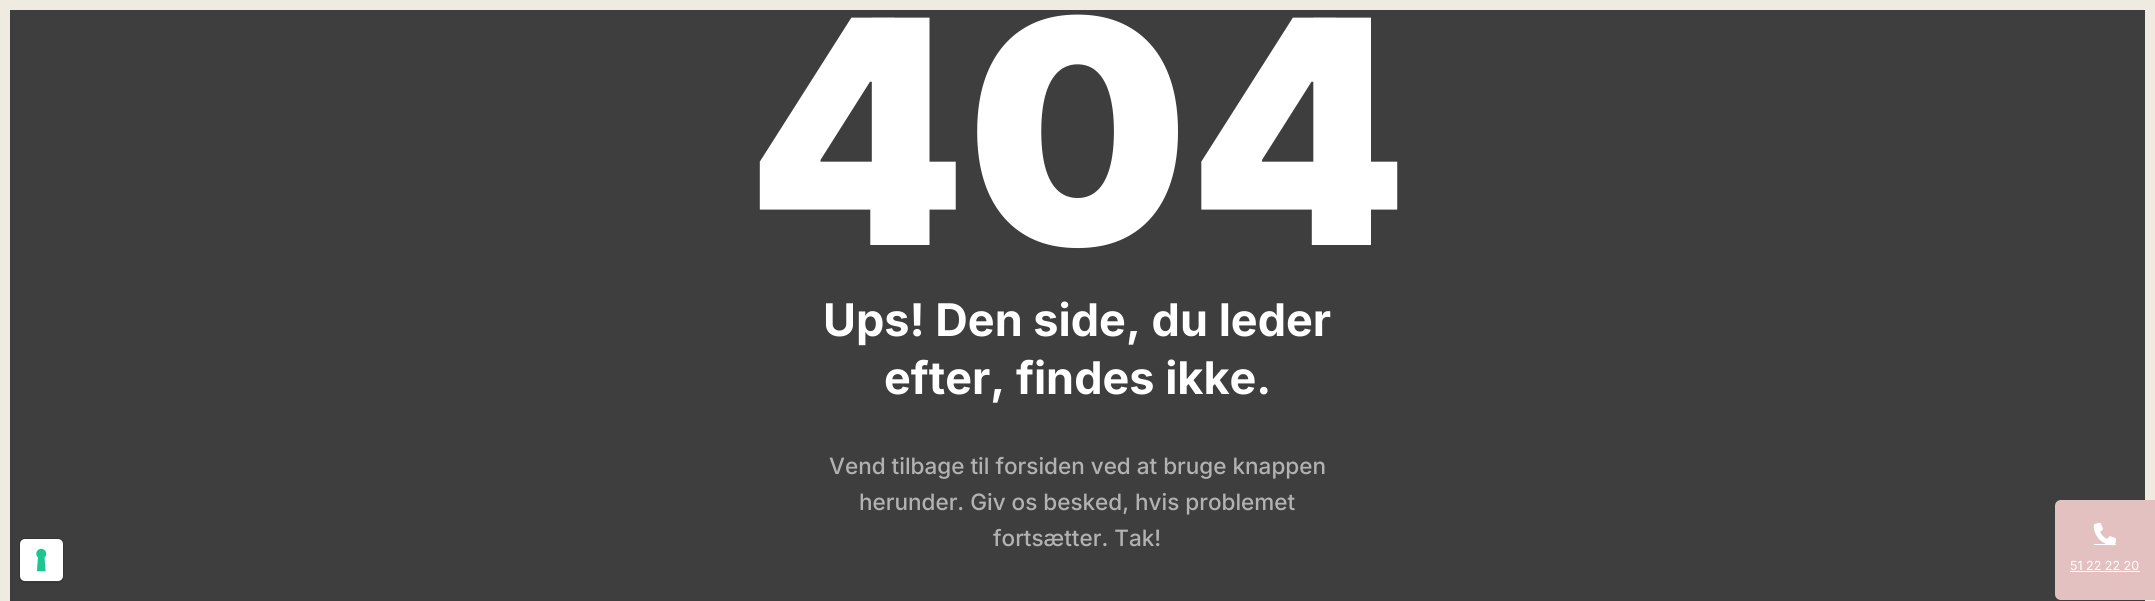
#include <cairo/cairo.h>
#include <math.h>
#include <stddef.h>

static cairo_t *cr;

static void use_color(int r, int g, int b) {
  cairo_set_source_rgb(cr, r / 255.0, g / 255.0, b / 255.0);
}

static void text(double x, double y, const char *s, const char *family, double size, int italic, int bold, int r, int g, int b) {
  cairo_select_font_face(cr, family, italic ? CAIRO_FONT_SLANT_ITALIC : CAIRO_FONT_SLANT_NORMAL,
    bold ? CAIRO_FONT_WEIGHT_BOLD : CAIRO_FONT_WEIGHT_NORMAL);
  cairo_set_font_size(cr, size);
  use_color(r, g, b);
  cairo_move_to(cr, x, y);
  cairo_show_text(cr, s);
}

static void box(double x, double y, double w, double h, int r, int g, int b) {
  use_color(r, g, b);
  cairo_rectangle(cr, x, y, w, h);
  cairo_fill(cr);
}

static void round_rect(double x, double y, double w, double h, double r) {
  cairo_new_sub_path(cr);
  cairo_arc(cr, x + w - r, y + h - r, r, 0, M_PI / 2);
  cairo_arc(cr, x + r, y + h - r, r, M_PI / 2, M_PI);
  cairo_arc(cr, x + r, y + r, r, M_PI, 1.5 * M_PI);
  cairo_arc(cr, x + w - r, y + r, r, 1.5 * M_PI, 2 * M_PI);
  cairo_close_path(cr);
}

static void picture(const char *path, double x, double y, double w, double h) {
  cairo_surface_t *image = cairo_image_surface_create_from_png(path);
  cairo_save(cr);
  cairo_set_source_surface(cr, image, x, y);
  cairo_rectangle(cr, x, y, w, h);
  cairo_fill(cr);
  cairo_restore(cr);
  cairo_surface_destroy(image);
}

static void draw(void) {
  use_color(240, 235, 225);
  cairo_paint(cr);
  box(10, 10, 2135, 591, 62, 62, 62);
  round_rect(19.5, 538.5, 44, 44, 5.5);
  use_color(53, 53, 53);
  cairo_set_line_width(cr, 1);
  cairo_stroke(cr);
  use_color(255, 255, 255);
  round_rect(20, 539, 43, 42, 5);
  cairo_fill(cr);
  picture("img_01.png", 36, 548, 11, 24);
  use_color(227, 193, 193);
  cairo_new_path(cr);
  cairo_move_to(cr, 2061, 500);
  cairo_line_to(cr, 2155, 500);
  cairo_line_to(cr, 2155, 600);
  cairo_line_to(cr, 2061, 600);
  cairo_curve_to(cr, 2057.5, 600, 2055, 597.5, 2055, 594);
  cairo_line_to(cr, 2055, 506);
  cairo_curve_to(cr, 2055, 502.5, 2057.5, 500, 2061, 500);
  cairo_close_path(cr);
  cairo_fill(cr);
  box(2094, 544, 22, 1, 255, 255, 255);
  picture("img_02.png", 2093, 522, 24, 24);
  box(2070, 571, 70, 1, 255, 255, 255);
  text(747, 245, "404", "Inter Black", 312.5, 0, 0, 255, 255, 255);
  text(823, 336, "Ups! Den side, du leder", "Inter", 45, 0, 1, 255, 255, 255);
  text(884, 394, "efter, findes ikke.", "Inter", 45, 0, 1, 255, 255, 255);
  text(829, 474, "Vend tilbage til forsiden ved at bruge knappen", "Inter Medium", 22.5, 0, 0, 178, 178, 178);
  text(859, 510, "herunder. Giv os besked, hvis problemet", "Inter Medium", 22.5, 0, 0, 178, 178, 178);
  text(993, 546, "fortsætter. Tak!", "Inter Medium", 22.5, 0, 0, 178, 178, 178);
  text(2070, 570, "51 22 22 20", "Inter", 12.5, 0, 0, 255, 255, 255);
}

int main(void) {
  cairo_surface_t *surface = cairo_image_surface_create(CAIRO_FORMAT_RGB24, 2155, 601);
  cr = cairo_create(surface);
  cairo_font_options_t *options = cairo_font_options_create();
  cairo_font_options_set_hint_metrics(options, CAIRO_HINT_METRICS_OFF);
  cairo_font_options_set_hint_style(options, CAIRO_HINT_STYLE_NONE);
  cairo_set_font_options(cr, options);
  cairo_set_miter_limit(cr, 4);
  draw();
  cairo_surface_write_to_png(surface, "out.png");
  cairo_font_options_destroy(options);
  cairo_destroy(cr);
  cairo_surface_destroy(surface);
  return 0;
}
